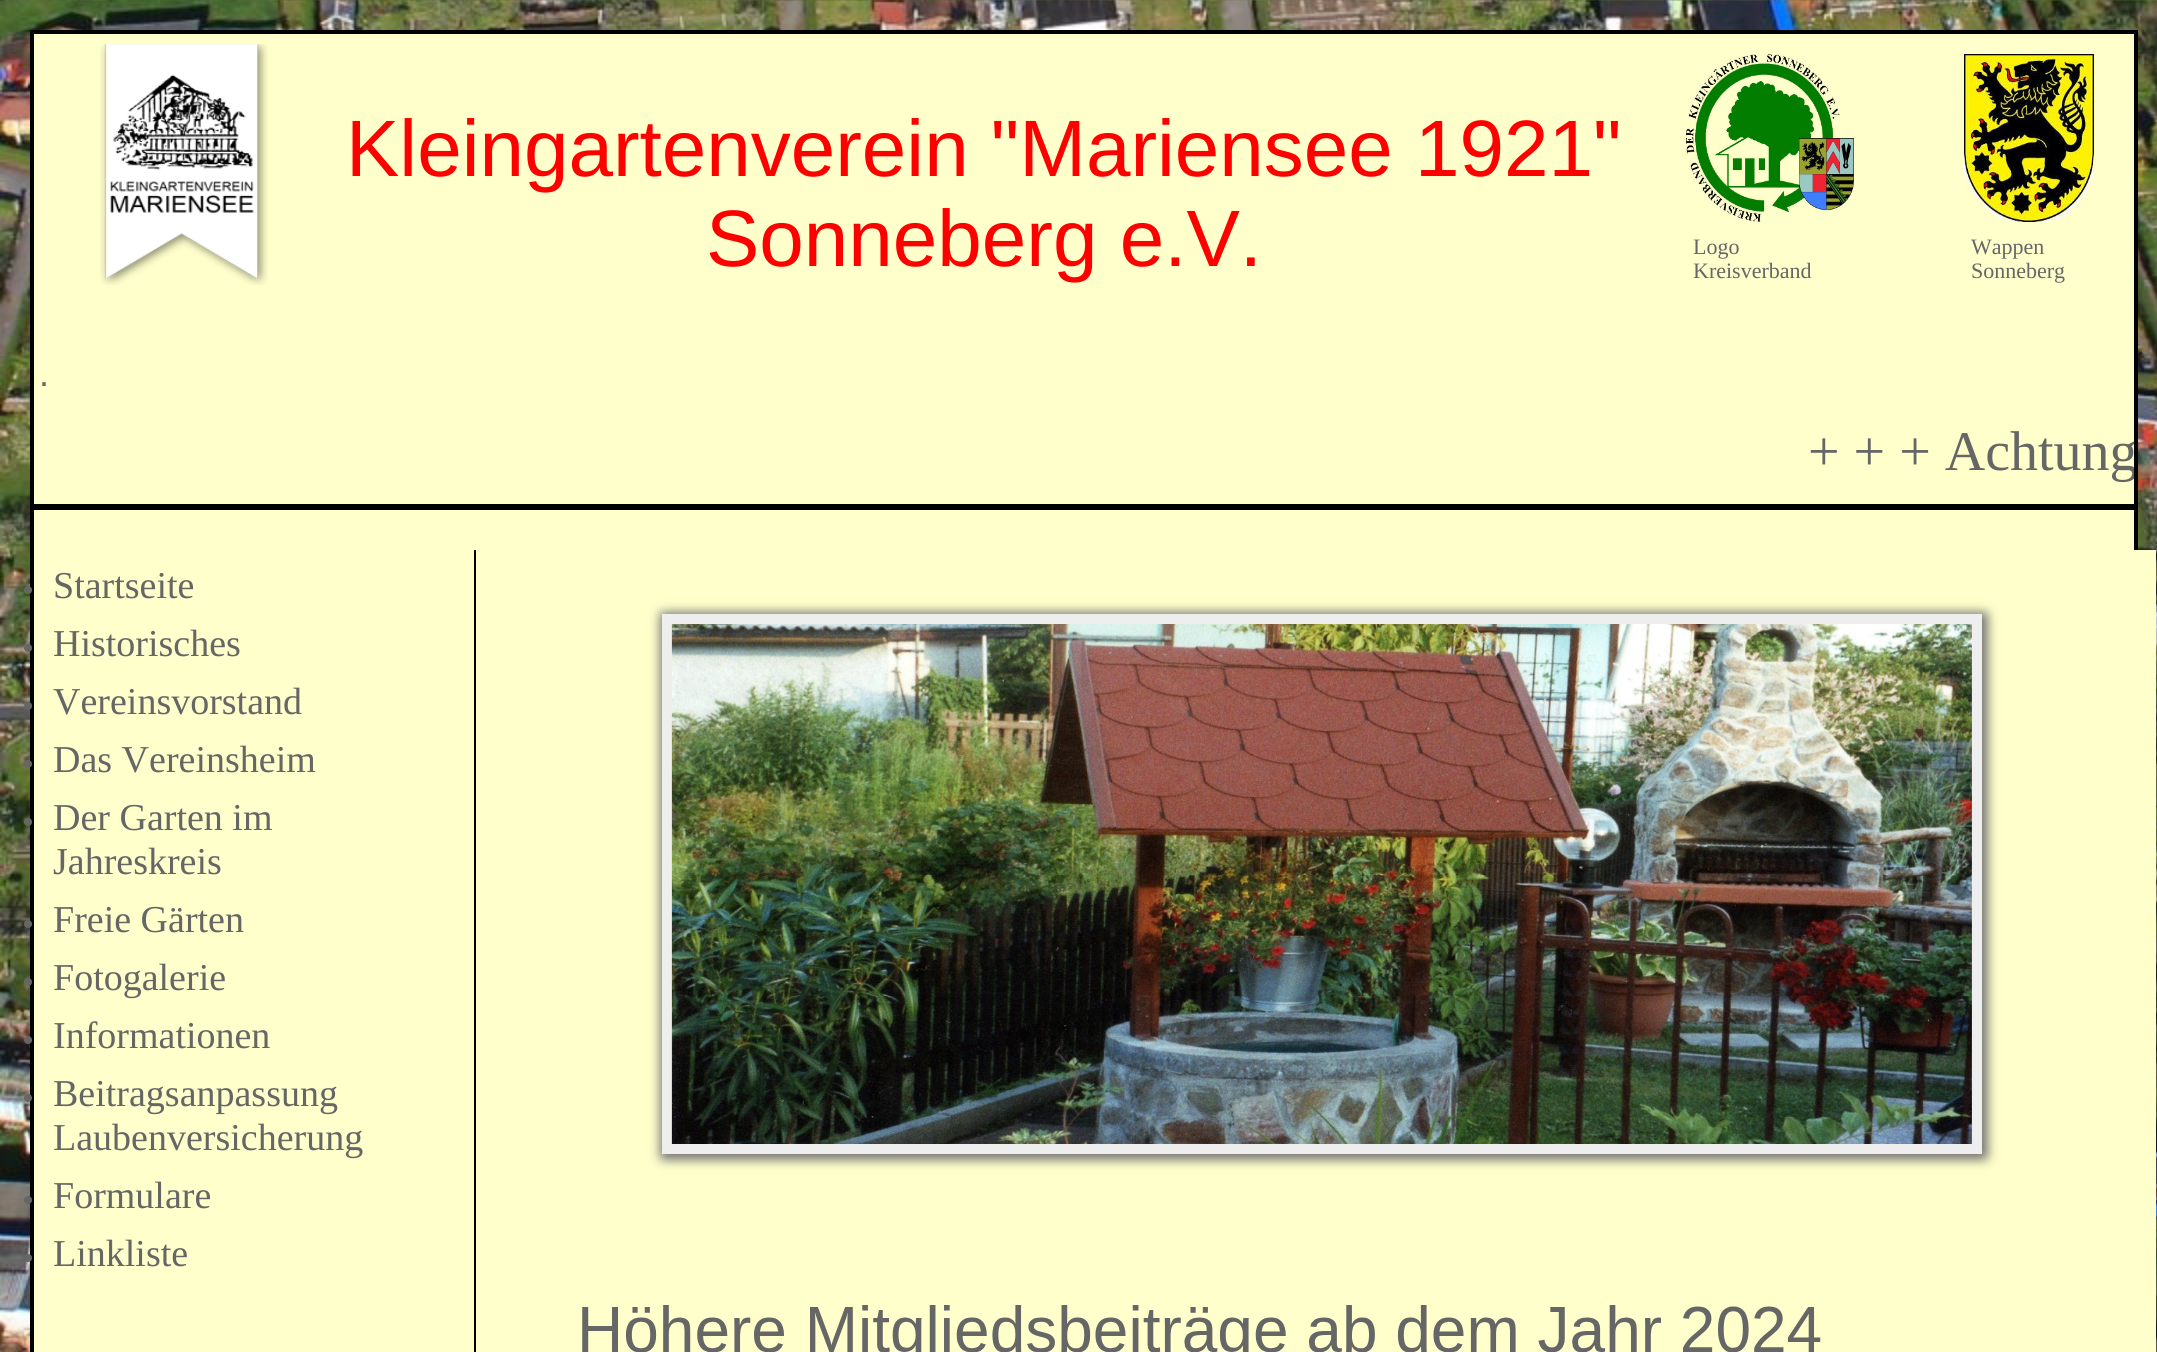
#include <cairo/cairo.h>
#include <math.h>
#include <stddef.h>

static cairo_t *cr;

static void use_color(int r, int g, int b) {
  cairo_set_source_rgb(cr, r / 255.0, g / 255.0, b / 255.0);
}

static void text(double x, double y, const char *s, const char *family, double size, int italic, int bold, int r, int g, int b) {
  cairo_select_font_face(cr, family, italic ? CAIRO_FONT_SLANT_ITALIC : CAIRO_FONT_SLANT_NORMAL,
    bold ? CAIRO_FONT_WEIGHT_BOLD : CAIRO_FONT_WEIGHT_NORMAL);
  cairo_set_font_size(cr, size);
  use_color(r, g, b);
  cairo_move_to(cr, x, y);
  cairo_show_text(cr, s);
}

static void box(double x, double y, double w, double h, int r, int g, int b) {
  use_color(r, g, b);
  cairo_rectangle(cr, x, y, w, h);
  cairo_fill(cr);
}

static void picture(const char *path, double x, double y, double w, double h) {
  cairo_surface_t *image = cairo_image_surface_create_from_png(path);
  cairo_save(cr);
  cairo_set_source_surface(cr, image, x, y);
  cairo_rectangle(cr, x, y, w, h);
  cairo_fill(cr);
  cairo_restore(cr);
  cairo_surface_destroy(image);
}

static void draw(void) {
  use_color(255, 255, 255);
  cairo_paint(cr);
  picture("img_01.png", 0, 0, 2157, 1352);
  use_color(255, 255, 204);
  cairo_rectangle(cr, 32, 32, 2104, 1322);
  cairo_fill_preserve(cr);
  use_color(0, 0, 0);
  cairo_set_line_width(cr, 4);
  cairo_stroke(cr);
  picture("img_02.png", 100, 44, 168, 241);
  picture("img_03.png", 1686, 54, 168, 168);
  picture("img_04.png", 1964, 54, 130, 168);
  box(34, 504, 2100, 6, 0, 0, 0);
  box(474, 550, 2, 802, 0, 0, 0);
  use_color(102, 102, 102);
  cairo_arc(cr, 28, 590, 4, 0, 2 * M_PI);
  cairo_fill(cr);
  cairo_arc(cr, 28, 648, 4, 0, 2 * M_PI);
  cairo_fill(cr);
  cairo_arc(cr, 28, 706, 4, 0, 2 * M_PI);
  cairo_fill(cr);
  cairo_arc(cr, 28, 764, 4, 0, 2 * M_PI);
  cairo_fill(cr);
  cairo_arc(cr, 28, 822, 4, 0, 2 * M_PI);
  cairo_fill(cr);
  cairo_arc(cr, 28, 924, 4, 0, 2 * M_PI);
  cairo_fill(cr);
  cairo_arc(cr, 28, 982, 4, 0, 2 * M_PI);
  cairo_fill(cr);
  cairo_arc(cr, 28, 1040, 4, 0, 2 * M_PI);
  cairo_fill(cr);
  cairo_arc(cr, 28, 1098, 4, 0, 2 * M_PI);
  cairo_fill(cr);
  cairo_arc(cr, 28, 1200, 4, 0, 2 * M_PI);
  cairo_fill(cr);
  cairo_arc(cr, 28, 1258, 4, 0, 2 * M_PI);
  cairo_fill(cr);
  picture("img_05.png", 582, 550, 1574, 802);
  text(346, 176, "Kleingartenverein \"Mariensee 1921\"", "Liberation Sans", 80, 0, 0, 255, 0, 0);
  text(706, 266, "Sonneberg e.V.", "Liberation Sans", 80, 0, 0, 255, 0, 0);
  text(1693, 254, "Logo", "Liberation Serif", 22, 0, 0, 102, 102, 102);
  text(1693, 278, "Kreisverband", "Liberation Serif", 22, 0, 0, 102, 102, 102);
  text(1971, 254, "Wappen", "Liberation Serif", 22, 0, 0, 102, 102, 102);
  text(1971, 278, "Sonneberg", "Liberation Serif", 22, 0, 0, 102, 102, 102);
  text(39, 386, ".", "Liberation Sans", 36, 0, 0, 102, 102, 102);
  cairo_save(cr);
  cairo_rectangle(cr, 34, 420, 2100, 64);
  cairo_clip(cr);
  text(1808, 470, "+ + + Achtung", "Liberation Serif", 56, 0, 0, 102, 102, 102);
  cairo_restore(cr);
  text(53, 598, "Startseite", "Liberation Serif", 38, 0, 0, 102, 102, 102);
  text(53, 656, "Historisches", "Liberation Serif", 38, 0, 0, 102, 102, 102);
  text(53, 714, "Vereinsvorstand", "Liberation Serif", 38, 0, 0, 102, 102, 102);
  text(53, 772, "Das Vereinsheim", "Liberation Serif", 38, 0, 0, 102, 102, 102);
  text(53, 830, "Der Garten im", "Liberation Serif", 38, 0, 0, 102, 102, 102);
  text(53, 874, "Jahreskreis", "Liberation Serif", 38, 0, 0, 102, 102, 102);
  text(53, 932, "Freie Gärten", "Liberation Serif", 38, 0, 0, 102, 102, 102);
  text(53, 990, "Fotogalerie", "Liberation Serif", 38, 0, 0, 102, 102, 102);
  text(53, 1048, "Informationen", "Liberation Serif", 38, 0, 0, 102, 102, 102);
  text(53, 1106, "Beitragsanpassung", "Liberation Serif", 38, 0, 0, 102, 102, 102);
  text(53, 1150, "Laubenversicherung", "Liberation Serif", 38, 0, 0, 102, 102, 102);
  text(53, 1208, "Formulare", "Liberation Serif", 38, 0, 0, 102, 102, 102);
  text(53, 1266, "Linkliste", "Liberation Serif", 38, 0, 0, 102, 102, 102);
}

int main(void) {
  cairo_surface_t *surface = cairo_image_surface_create(CAIRO_FORMAT_RGB24, 2157, 1352);
  cr = cairo_create(surface);
  cairo_font_options_t *options = cairo_font_options_create();
  cairo_font_options_set_hint_metrics(options, CAIRO_HINT_METRICS_OFF);
  cairo_font_options_set_hint_style(options, CAIRO_HINT_STYLE_NONE);
  cairo_set_font_options(cr, options);
  cairo_set_miter_limit(cr, 4);
  draw();
  cairo_surface_write_to_png(surface, "out.png");
  cairo_font_options_destroy(options);
  cairo_destroy(cr);
  cairo_surface_destroy(surface);
  return 0;
}
